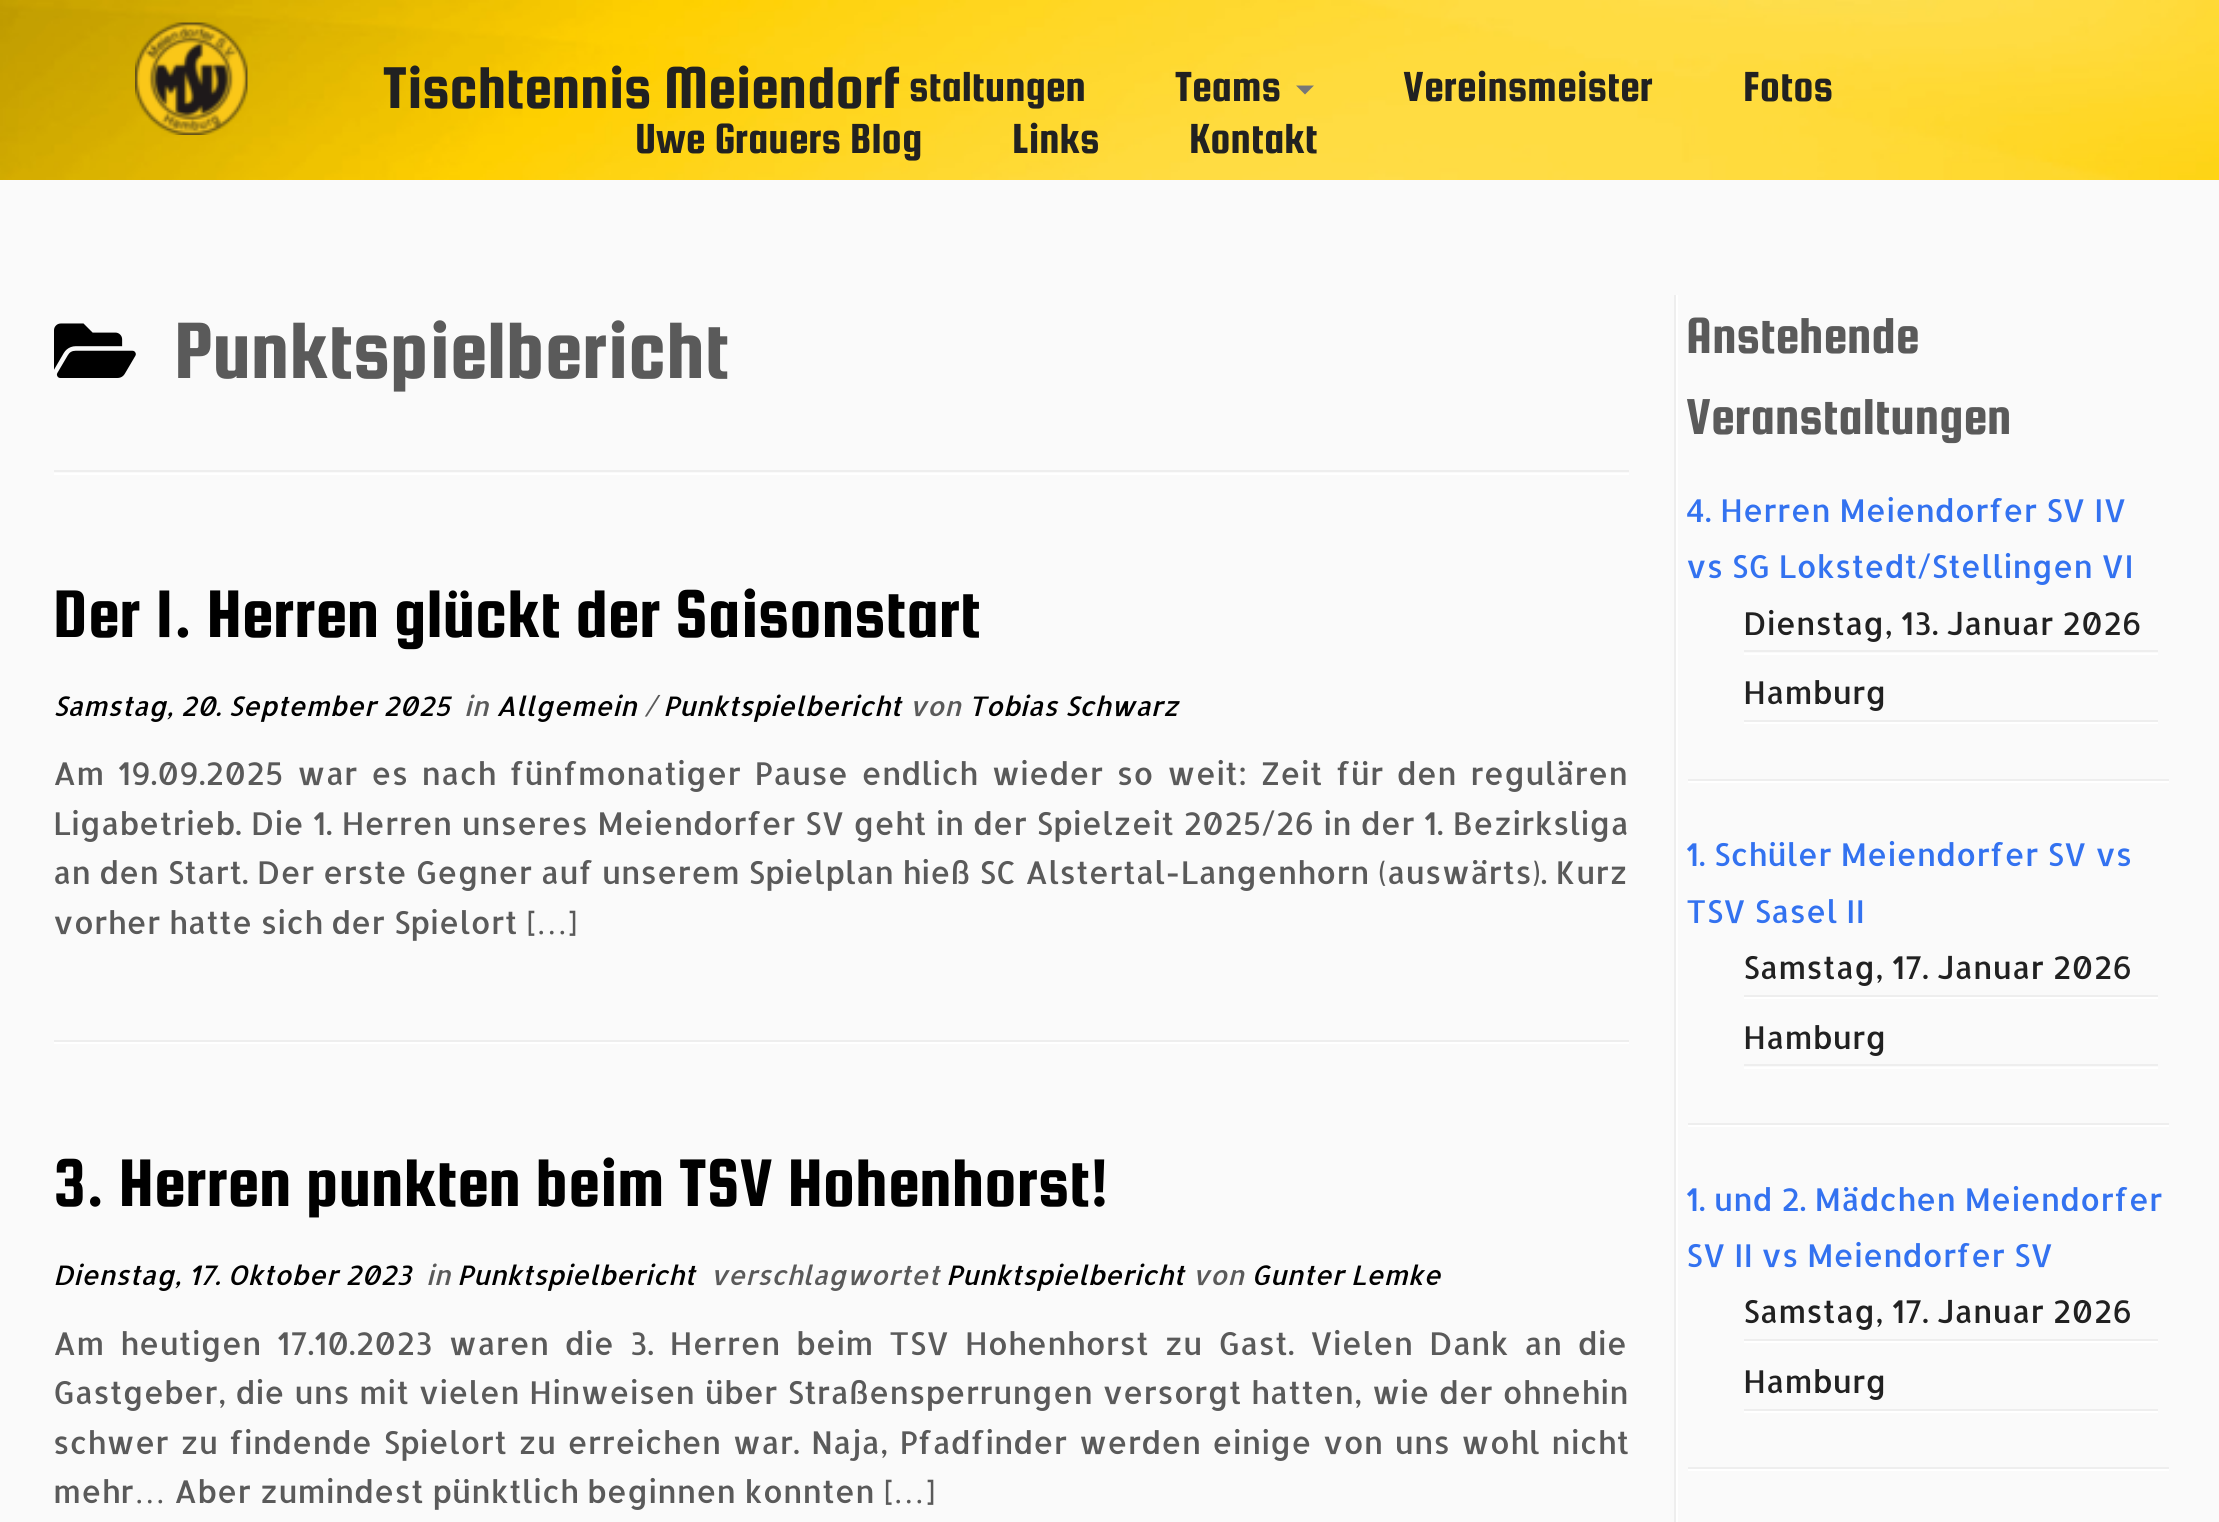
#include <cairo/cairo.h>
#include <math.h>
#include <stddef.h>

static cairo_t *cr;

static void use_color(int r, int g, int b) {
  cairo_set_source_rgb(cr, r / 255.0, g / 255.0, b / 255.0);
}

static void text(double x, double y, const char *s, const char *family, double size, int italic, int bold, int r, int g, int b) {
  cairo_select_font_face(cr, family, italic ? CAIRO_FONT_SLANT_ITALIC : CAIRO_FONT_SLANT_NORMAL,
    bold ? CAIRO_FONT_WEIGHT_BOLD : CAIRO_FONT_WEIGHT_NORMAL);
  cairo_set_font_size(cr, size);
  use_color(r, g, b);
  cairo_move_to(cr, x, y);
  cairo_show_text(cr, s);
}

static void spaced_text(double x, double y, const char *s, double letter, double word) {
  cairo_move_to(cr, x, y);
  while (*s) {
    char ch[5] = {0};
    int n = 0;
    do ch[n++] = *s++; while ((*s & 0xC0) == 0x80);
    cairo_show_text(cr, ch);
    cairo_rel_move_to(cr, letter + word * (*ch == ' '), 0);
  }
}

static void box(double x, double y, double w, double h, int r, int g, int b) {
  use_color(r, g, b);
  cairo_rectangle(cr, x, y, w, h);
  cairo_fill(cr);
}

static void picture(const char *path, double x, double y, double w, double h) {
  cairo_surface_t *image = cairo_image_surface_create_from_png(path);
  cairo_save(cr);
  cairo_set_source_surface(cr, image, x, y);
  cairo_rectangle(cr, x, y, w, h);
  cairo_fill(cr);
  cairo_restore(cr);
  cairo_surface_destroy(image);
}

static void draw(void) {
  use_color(250, 250, 250);
  cairo_paint(cr);
  picture("img_01.png", 0, 0, 2219, 180);
  picture("img_02.png", 135, 22, 113, 113);
  use_color(119, 119, 119);
  cairo_new_path(cr);
  cairo_move_to(cr, 1296, 85.5);
  cairo_line_to(cr, 1314, 85.5);
  cairo_line_to(cr, 1305, 94.5);
  cairo_close_path(cr);
  cairo_fill(cr);
  picture("img_03.png", 54, 323, 82, 55);
  box(54, 470, 1575, 2, 238, 238, 238);
  box(54, 473, 1575, 2, 255, 255, 255);
  box(54, 1040, 1575, 2, 238, 238, 238);
  box(54, 1042, 1575, 2, 255, 255, 255);
  box(1674, 295, 2, 1227, 238, 238, 238);
  box(1676, 295, 2, 1227, 255, 255, 255);
  box(1688, 779, 481, 2, 238, 238, 238);
  box(1744, 650, 414, 2, 238, 238, 238);
  box(1744, 653, 414, 2, 255, 255, 255);
  box(1744, 720, 414, 2, 238, 238, 238);
  box(1744, 722, 414, 2, 255, 255, 255);
  box(1688, 781, 481, 2, 255, 255, 255);
  box(1688, 1123, 481, 2, 238, 238, 238);
  box(1744, 995, 414, 2, 238, 238, 238);
  box(1744, 997, 414, 2, 255, 255, 255);
  box(1744, 1064, 414, 2, 238, 238, 238);
  box(1744, 1067, 414, 2, 255, 255, 255);
  box(1688, 1125, 481, 2, 255, 255, 255);
  box(1688, 1467, 481, 2, 238, 238, 238);
  box(1744, 1339, 414, 2, 238, 238, 238);
  box(1744, 1341, 414, 2, 255, 255, 255);
  box(1744, 1409, 414, 2, 238, 238, 238);
  box(1744, 1411, 414, 2, 255, 255, 255);
  box(1688, 1469, 481, 2, 255, 255, 255);
  text(383, 108, "Tischtennis Meiendorf", "Squada One", 63, 0, 0, 33, 33, 33);
  text(909, 101, "staltungen", "Squada One", 45, 0, 0, 33, 33, 33);
  text(1175, 101, "Teams", "Squada One", 45, 0, 0, 33, 33, 33);
  text(1403, 101, "Vereinsmeister", "Squada One", 45, 0, 0, 33, 33, 33);
  text(1743, 101, "Fotos", "Squada One", 45, 0, 0, 33, 33, 33);
  text(635, 153, "Uwe Grauers Blog", "Squada One", 45, 0, 0, 33, 33, 33);
  text(1012, 153, "Links", "Squada One", 45, 0, 0, 33, 33, 33);
  text(1189, 153, "Kontakt", "Squada One", 45, 0, 0, 33, 33, 33);
  text(174, 378, "Punktspielbericht", "Squada One", 85.5, 0, 0, 90, 90, 90);
  text(53, 637, "Der 1. Herren glückt der Saisonstart", "Squada One", 72, 0, 0, 0, 0, 0);
  text(53, 716, "Samstag, 20. September 2025", "Allerta", 27, 1, 0, 0, 0, 0);
  text(464, 716, "in", "Allerta", 27, 1, 0, 90, 90, 90);
  text(496, 716, "Allgemein", "Allerta", 27, 1, 0, 0, 0, 0);
  text(644, 716, "/", "Allerta", 27, 1, 0, 90, 90, 90);
  text(663, 716, "Punktspielbericht", "Allerta", 27, 1, 0, 0, 0, 0);
  text(909, 716, "von", "Allerta", 27, 1, 0, 90, 90, 90);
  text(968, 716, "Tobias Schwarz", "Allerta", 27, 1, 0, 0, 0, 0);
  cairo_select_font_face(cr, "Allerta", CAIRO_FONT_SLANT_NORMAL, CAIRO_FONT_WEIGHT_NORMAL);
  cairo_set_font_size(cr, 31.5);
  use_color(90, 90, 90);
  spaced_text(53, 785, "Am 19.09.2025 war es nach fünfmonatiger Pause endlich wieder so weit: Zeit für den regulären", 0, 5);
  spaced_text(53, 835, "Ligabetrieb. Die 1. Herren unseres Meiendorfer SV geht in der Spielzeit 2025/26 in der 1. Bezirksliga", 0, 0.75);
  text(53, 884, "an den Start. Der erste Gegner auf unserem Spielplan hieß SC Alstertal-Langenhorn (auswärts). Kurz", "Allerta", 31.5, 0, 0, 90, 90, 90);
  text(53, 934, "vorher hatte sich der Spielort [", "Allerta", 31.5, 0, 0, 90, 90, 90);
  text(536, 934, "…", "Liberation Serif", 31.5, 0, 0, 90, 90, 90);
  text(567, 934, "]", "Allerta", 31.5, 0, 0, 90, 90, 90);
  text(53, 1206, "3. Herren punkten beim TSV Hohenhorst!", "Squada One", 72, 0, 0, 0, 0, 0);
  text(53, 1285, "Dienstag, 17. Oktober 2023", "Allerta", 27, 1, 0, 0, 0, 0);
  text(426, 1285, "in", "Allerta", 27, 1, 0, 90, 90, 90);
  text(457, 1285, "Punktspielbericht", "Allerta", 27, 1, 0, 0, 0, 0);
  text(710, 1285, "verschlagwortet", "Allerta", 27, 1, 0, 90, 90, 90);
  text(946, 1285, "Punktspielbericht", "Allerta", 27, 1, 0, 0, 0, 0);
  text(1192, 1285, "von", "Allerta", 27, 1, 0, 90, 90, 90);
  text(1251, 1285, "Gunter Lemke", "Allerta", 27, 1, 0, 0, 0, 0);
  cairo_select_font_face(cr, "Allerta", CAIRO_FONT_SLANT_NORMAL, CAIRO_FONT_WEIGHT_NORMAL);
  cairo_set_font_size(cr, 31.5);
  use_color(90, 90, 90);
  spaced_text(53, 1355, "Am heutigen 17.10.2023 waren die 3. Herren beim TSV Hohenhorst zu Gast. Vielen Dank an die", 0, 7.25);
  spaced_text(53, 1404, "Gastgeber, die uns mit vielen Hinweisen über Straßensperrungen versorgt hatten, wie der ohnehin", 0, 1);
  spaced_text(53, 1454, "schwer zu findende Spielort zu erreichen war. Naja, Pfadfinder werden einige von uns wohl nicht", 0, 2.75);
  text(53, 1503, "mehr", "Allerta", 31.5, 0, 0, 90, 90, 90);
  text(134, 1503, "…", "Liberation Serif", 31.5, 0, 0, 90, 90, 90);
  text(174, 1503, "Aber zumindest pünktlich beginnen konnten [", "Allerta", 31.5, 0, 0, 90, 90, 90);
  text(893, 1503, "…", "Liberation Serif", 31.5, 0, 0, 90, 90, 90);
  text(925, 1503, "]", "Allerta", 31.5, 0, 0, 90, 90, 90);
  text(1686, 353, "Anstehende", "Squada One", 54, 0, 0, 90, 90, 90);
  text(1686, 434, "Veranstaltungen", "Squada One", 54, 0, 0, 90, 90, 90);
  text(1686, 522, "4. Herren Meiendorfer SV IV", "Allerta", 31.5, 0, 0, 51, 114, 240);
  text(1686, 578, "vs SG Lokstedt/Stellingen VI", "Allerta", 31.5, 0, 0, 51, 114, 240);
  text(1743, 635, "Dienstag, 13. Januar 2026", "Allerta", 31.5, 0, 0, 33, 33, 33);
  text(1743, 704, "Hamburg", "Allerta", 31.5, 0, 0, 33, 33, 33);
  text(1686, 866, "1. Schüler Meiendorfer SV vs", "Allerta", 31.5, 0, 0, 51, 114, 240);
  text(1686, 923, "TSV Sasel II", "Allerta", 31.5, 0, 0, 51, 114, 240);
  text(1743, 979, "Samstag, 17. Januar 2026", "Allerta", 31.5, 0, 0, 33, 33, 33);
  text(1743, 1049, "Hamburg", "Allerta", 31.5, 0, 0, 33, 33, 33);
  text(1686, 1211, "1. und 2. Mädchen Meiendorfer", "Allerta", 31.5, 0, 0, 51, 114, 240);
  text(1686, 1267, "SV II vs Meiendorfer SV", "Allerta", 31.5, 0, 0, 51, 114, 240);
  text(1743, 1323, "Samstag, 17. Januar 2026", "Allerta", 31.5, 0, 0, 33, 33, 33);
  text(1743, 1393, "Hamburg", "Allerta", 31.5, 0, 0, 33, 33, 33);
}

int main(void) {
  cairo_surface_t *surface = cairo_image_surface_create(CAIRO_FORMAT_RGB24, 2219, 1522);
  cr = cairo_create(surface);
  cairo_font_options_t *options = cairo_font_options_create();
  cairo_font_options_set_hint_metrics(options, CAIRO_HINT_METRICS_OFF);
  cairo_font_options_set_hint_style(options, CAIRO_HINT_STYLE_NONE);
  cairo_set_font_options(cr, options);
  cairo_set_miter_limit(cr, 4);
  draw();
  cairo_surface_write_to_png(surface, "out.png");
  cairo_font_options_destroy(options);
  cairo_destroy(cr);
  cairo_surface_destroy(surface);
  return 0;
}
